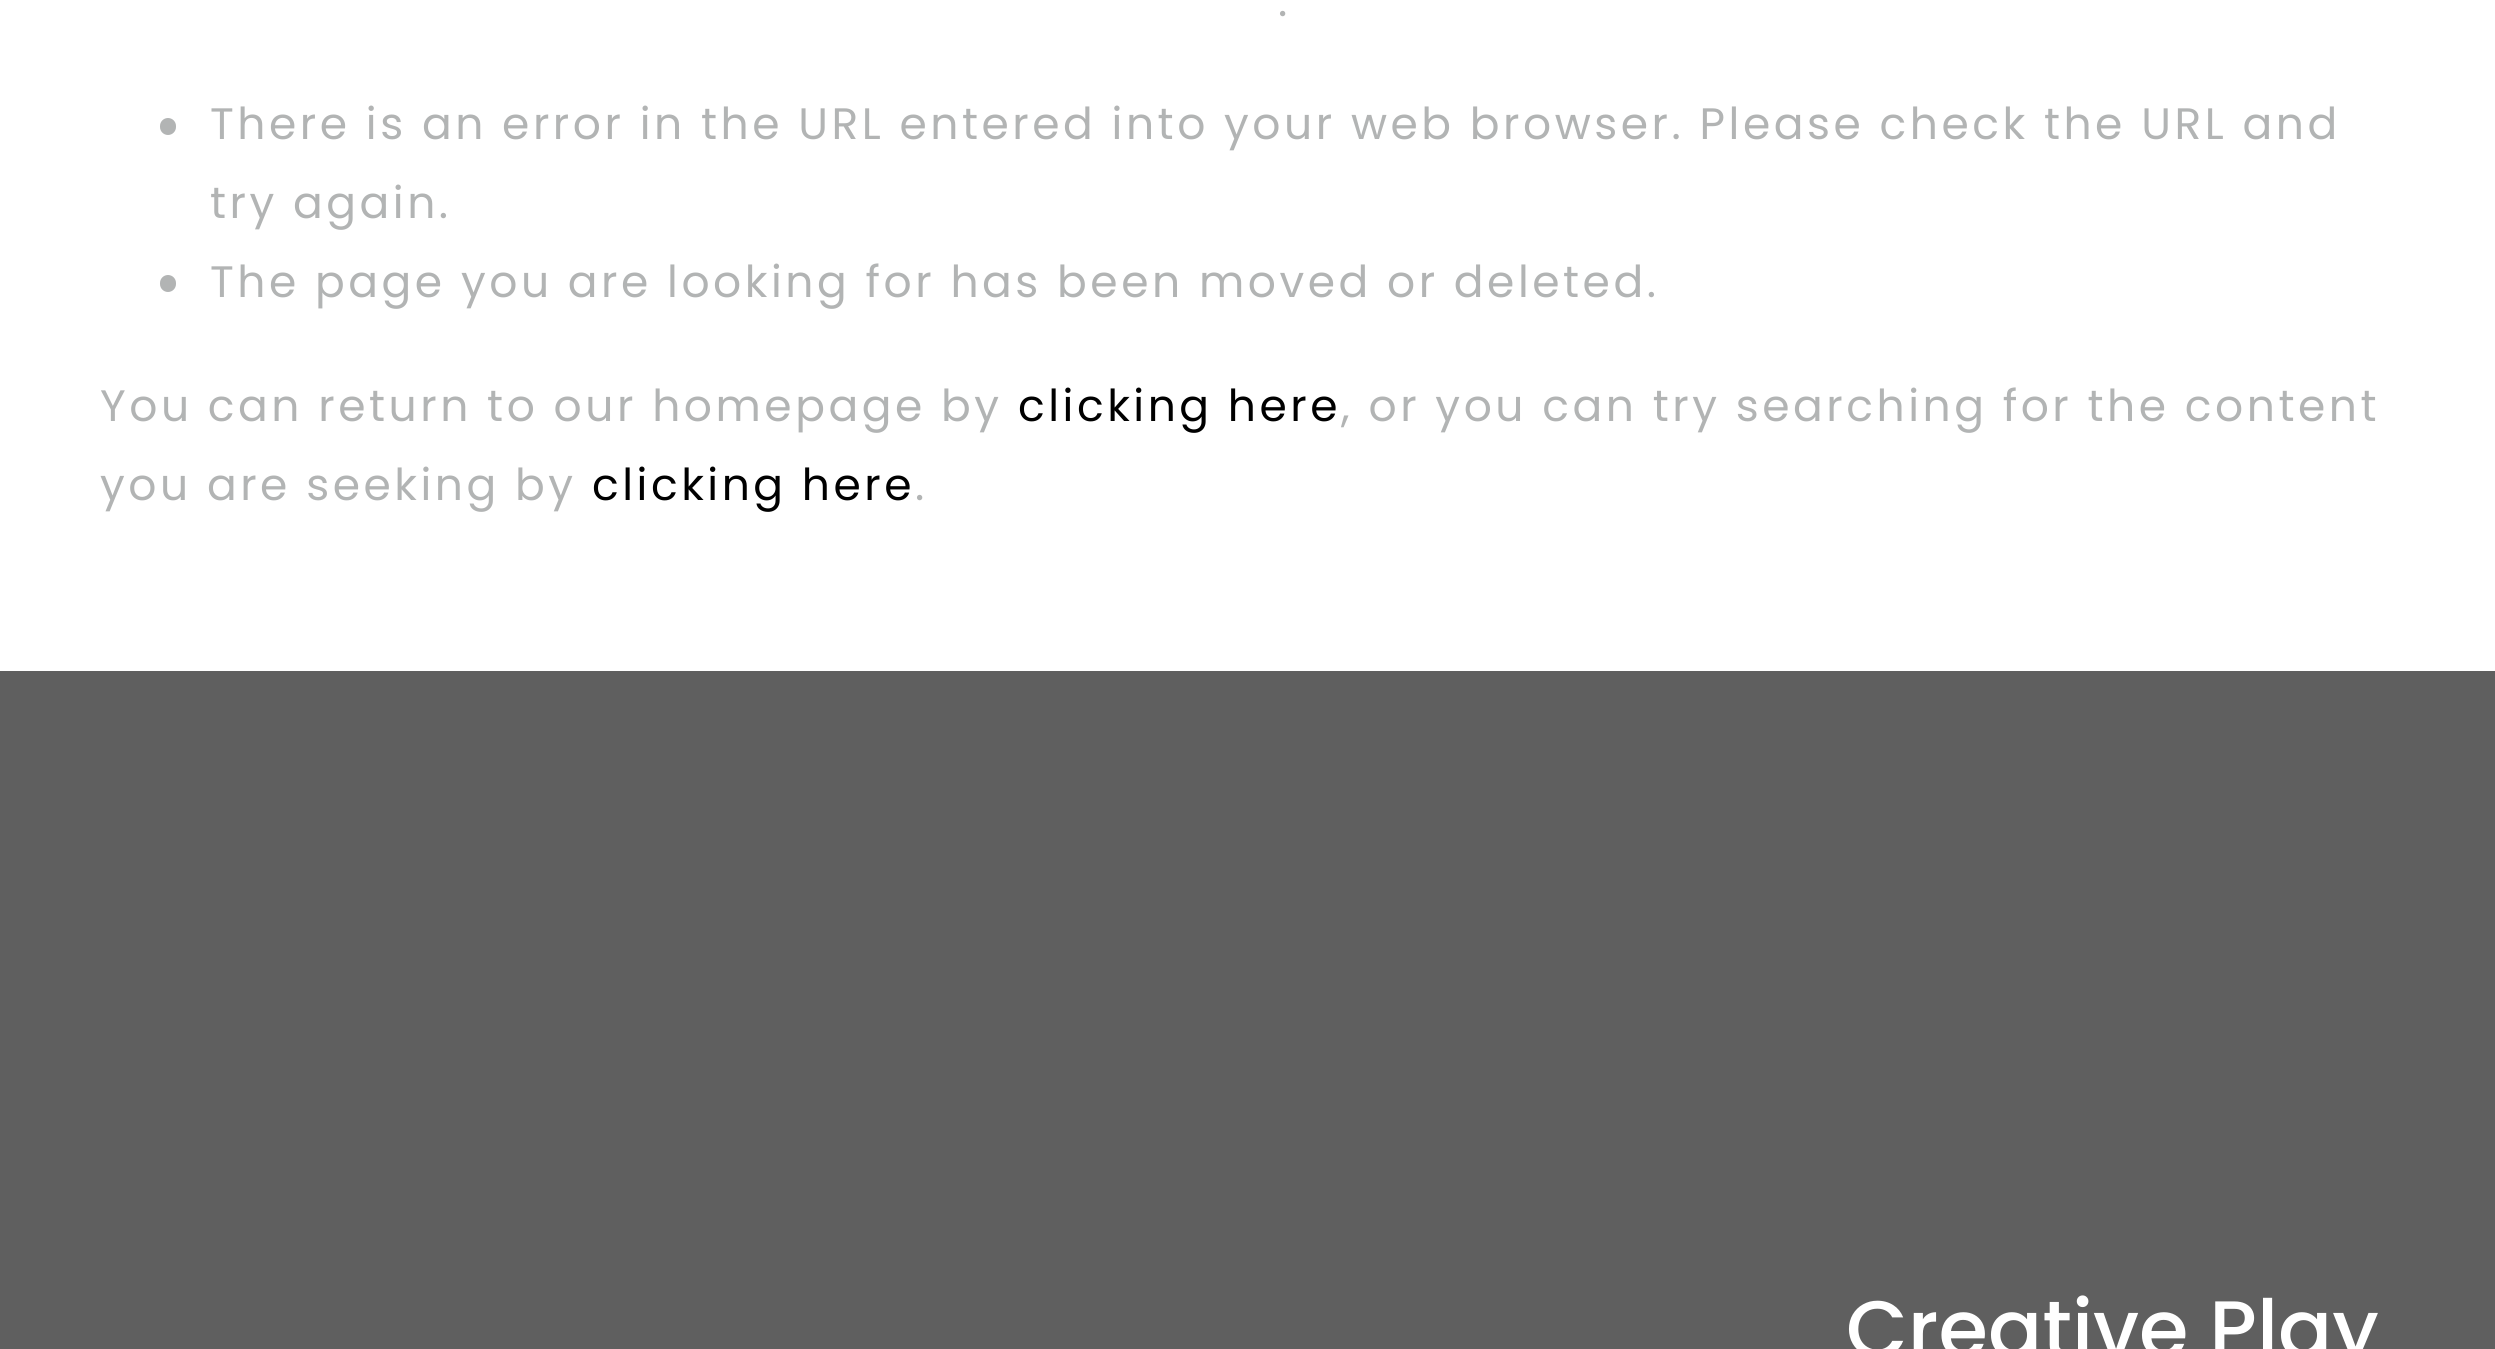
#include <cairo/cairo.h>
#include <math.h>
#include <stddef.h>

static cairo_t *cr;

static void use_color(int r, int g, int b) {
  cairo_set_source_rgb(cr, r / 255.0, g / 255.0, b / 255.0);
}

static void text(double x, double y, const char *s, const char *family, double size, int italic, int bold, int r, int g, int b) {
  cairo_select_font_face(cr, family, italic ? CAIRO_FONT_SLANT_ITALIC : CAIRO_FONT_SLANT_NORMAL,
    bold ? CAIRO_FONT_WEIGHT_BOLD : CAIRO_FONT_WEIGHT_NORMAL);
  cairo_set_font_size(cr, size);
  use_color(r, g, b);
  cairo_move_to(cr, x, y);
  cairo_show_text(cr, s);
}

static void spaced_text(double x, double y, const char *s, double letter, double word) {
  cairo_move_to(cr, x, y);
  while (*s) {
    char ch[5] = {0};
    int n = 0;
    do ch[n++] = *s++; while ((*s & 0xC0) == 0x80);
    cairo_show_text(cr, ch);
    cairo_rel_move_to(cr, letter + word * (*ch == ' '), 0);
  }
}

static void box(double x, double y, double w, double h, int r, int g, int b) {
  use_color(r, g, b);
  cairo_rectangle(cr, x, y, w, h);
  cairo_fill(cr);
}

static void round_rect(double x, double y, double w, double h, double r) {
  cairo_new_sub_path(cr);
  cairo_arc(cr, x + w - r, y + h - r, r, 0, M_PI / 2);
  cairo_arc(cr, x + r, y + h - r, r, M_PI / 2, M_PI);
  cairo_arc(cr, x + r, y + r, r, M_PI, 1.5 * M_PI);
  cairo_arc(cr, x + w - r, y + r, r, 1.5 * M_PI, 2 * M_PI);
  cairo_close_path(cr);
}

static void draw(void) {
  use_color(255, 255, 255);
  cairo_paint(cr);
  use_color(178, 180, 180);
  round_rect(160, 118, 16, 17, 8);
  cairo_fill(cr);
  round_rect(160, 275, 16, 17, 8);
  cairo_fill(cr);
  box(0, 671, 2495, 678, 95, 95, 95);
  cairo_select_font_face(cr, "Poppins", CAIRO_FONT_SLANT_NORMAL, CAIRO_FONT_WEIGHT_NORMAL);
  cairo_set_font_size(cr, 44);
  use_color(178, 180, 180);
  spaced_text(1278, 16, ".", 3.52, 0);
  spaced_text(210, 139, "There is an error in the URL entered into your web browser. Please check the URL and", 3.52, 0);
  spaced_text(210, 218, "try again.", 3.52, 0);
  spaced_text(210, 297, "The page you are looking for has been moved or deleted.", 3.52, 0);
  spaced_text(100, 421, "You can return to our homepage by", 3.52, 0);
  use_color(0, 0, 0);
  spaced_text(1018, 421, "clicking here", 3.52, 0);
  use_color(178, 180, 180);
  spaced_text(1341, 421, ", or you can try searching for the content", 3.52, 0);
  spaced_text(100, 500, "you are seeking by", 3.52, 0);
  use_color(0, 0, 0);
  spaced_text(592, 500, "clicking here", 3.52, 0);
  use_color(178, 180, 180);
  spaced_text(915, 500, ".", 3.52, 0);
  text(1846, 1357, "Creative Play", "Poppins Medium", 80, 0, 0, 255, 255, 255);
}

int main(void) {
  cairo_surface_t *surface = cairo_image_surface_create(CAIRO_FORMAT_RGB24, 2495, 1349);
  cr = cairo_create(surface);
  cairo_font_options_t *options = cairo_font_options_create();
  cairo_font_options_set_hint_metrics(options, CAIRO_HINT_METRICS_OFF);
  cairo_font_options_set_hint_style(options, CAIRO_HINT_STYLE_NONE);
  cairo_set_font_options(cr, options);
  cairo_set_miter_limit(cr, 4);
  draw();
  cairo_surface_write_to_png(surface, "out.png");
  cairo_font_options_destroy(options);
  cairo_destroy(cr);
  cairo_surface_destroy(surface);
  return 0;
}
